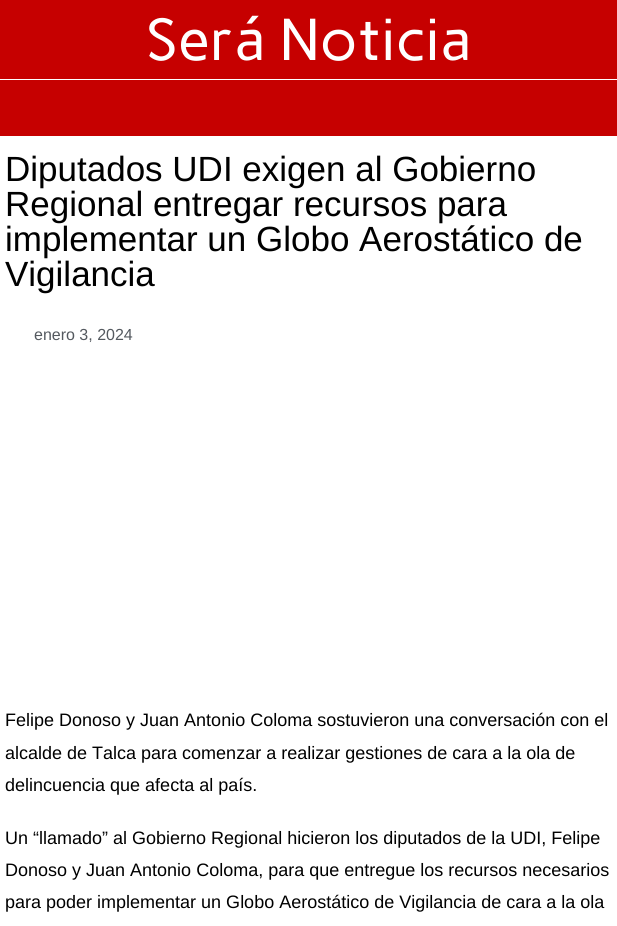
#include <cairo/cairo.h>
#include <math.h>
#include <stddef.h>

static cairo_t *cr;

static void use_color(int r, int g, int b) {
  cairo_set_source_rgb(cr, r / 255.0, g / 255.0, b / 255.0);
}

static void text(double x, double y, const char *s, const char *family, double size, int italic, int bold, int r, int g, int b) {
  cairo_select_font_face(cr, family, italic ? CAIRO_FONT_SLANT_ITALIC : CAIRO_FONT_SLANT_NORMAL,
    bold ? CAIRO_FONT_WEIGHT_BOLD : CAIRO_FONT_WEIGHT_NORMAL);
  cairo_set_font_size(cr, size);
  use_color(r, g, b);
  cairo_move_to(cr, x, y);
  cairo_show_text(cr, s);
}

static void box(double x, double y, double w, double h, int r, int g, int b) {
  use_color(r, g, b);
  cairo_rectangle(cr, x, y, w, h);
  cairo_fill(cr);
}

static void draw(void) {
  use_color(255, 255, 255);
  cairo_paint(cr);
  box(0, 0, 617, 79, 198, 0, 0);
  box(0, 80, 617, 56, 198, 0, 0);
  text(146, 60, "Será Noticia", "Carme", 59, 0, 0, 255, 255, 255);
  text(5, 181, "Diputados UDI exigen al Gobierno", "Liberation Sans", 35, 0, 0, 0, 0, 0);
  text(5, 216, "Regional entregar recursos para", "Liberation Sans", 35, 0, 0, 0, 0, 0);
  text(5, 251, "implementar un Globo Aerostático de", "Liberation Sans", 35, 0, 0, 0, 0, 0);
  text(5, 286, "Vigilancia", "Liberation Sans", 35, 0, 0, 0, 0, 0);
  text(34, 340, "enero 3, 2024", "Liberation Sans", 16, 0, 0, 84, 89, 95);
  text(5, 726, "Felipe Donoso y Juan Antonio Coloma sostuvieron una conversación con el", "Liberation Sans", 18, 0, 0, 0, 0, 0);
  text(5, 759, "alcalde de Talca para comenzar a realizar gestiones de cara a la ola de", "Liberation Sans", 18, 0, 0, 0, 0, 0);
  text(5, 791, "delincuencia que afecta al país.", "Liberation Sans", 18, 0, 0, 0, 0, 0);
  text(5, 844, "Un “llamado” al Gobierno Regional hicieron los diputados de la UDI, Felipe", "Liberation Sans", 18, 0, 0, 0, 0, 0);
  text(5, 876, "Donoso y Juan Antonio Coloma, para que entregue los recursos necesarios", "Liberation Sans", 18, 0, 0, 0, 0, 0);
  text(5, 908, "para poder implementar un Globo Aerostático de Vigilancia de cara a la ola", "Liberation Sans", 18, 0, 0, 0, 0, 0);
}

int main(void) {
  cairo_surface_t *surface = cairo_image_surface_create(CAIRO_FORMAT_RGB24, 617, 926);
  cr = cairo_create(surface);
  cairo_font_options_t *options = cairo_font_options_create();
  cairo_font_options_set_hint_metrics(options, CAIRO_HINT_METRICS_OFF);
  cairo_font_options_set_hint_style(options, CAIRO_HINT_STYLE_NONE);
  cairo_set_font_options(cr, options);
  cairo_set_miter_limit(cr, 4);
  draw();
  cairo_surface_write_to_png(surface, "out.png");
  cairo_font_options_destroy(options);
  cairo_destroy(cr);
  cairo_surface_destroy(surface);
  return 0;
}
